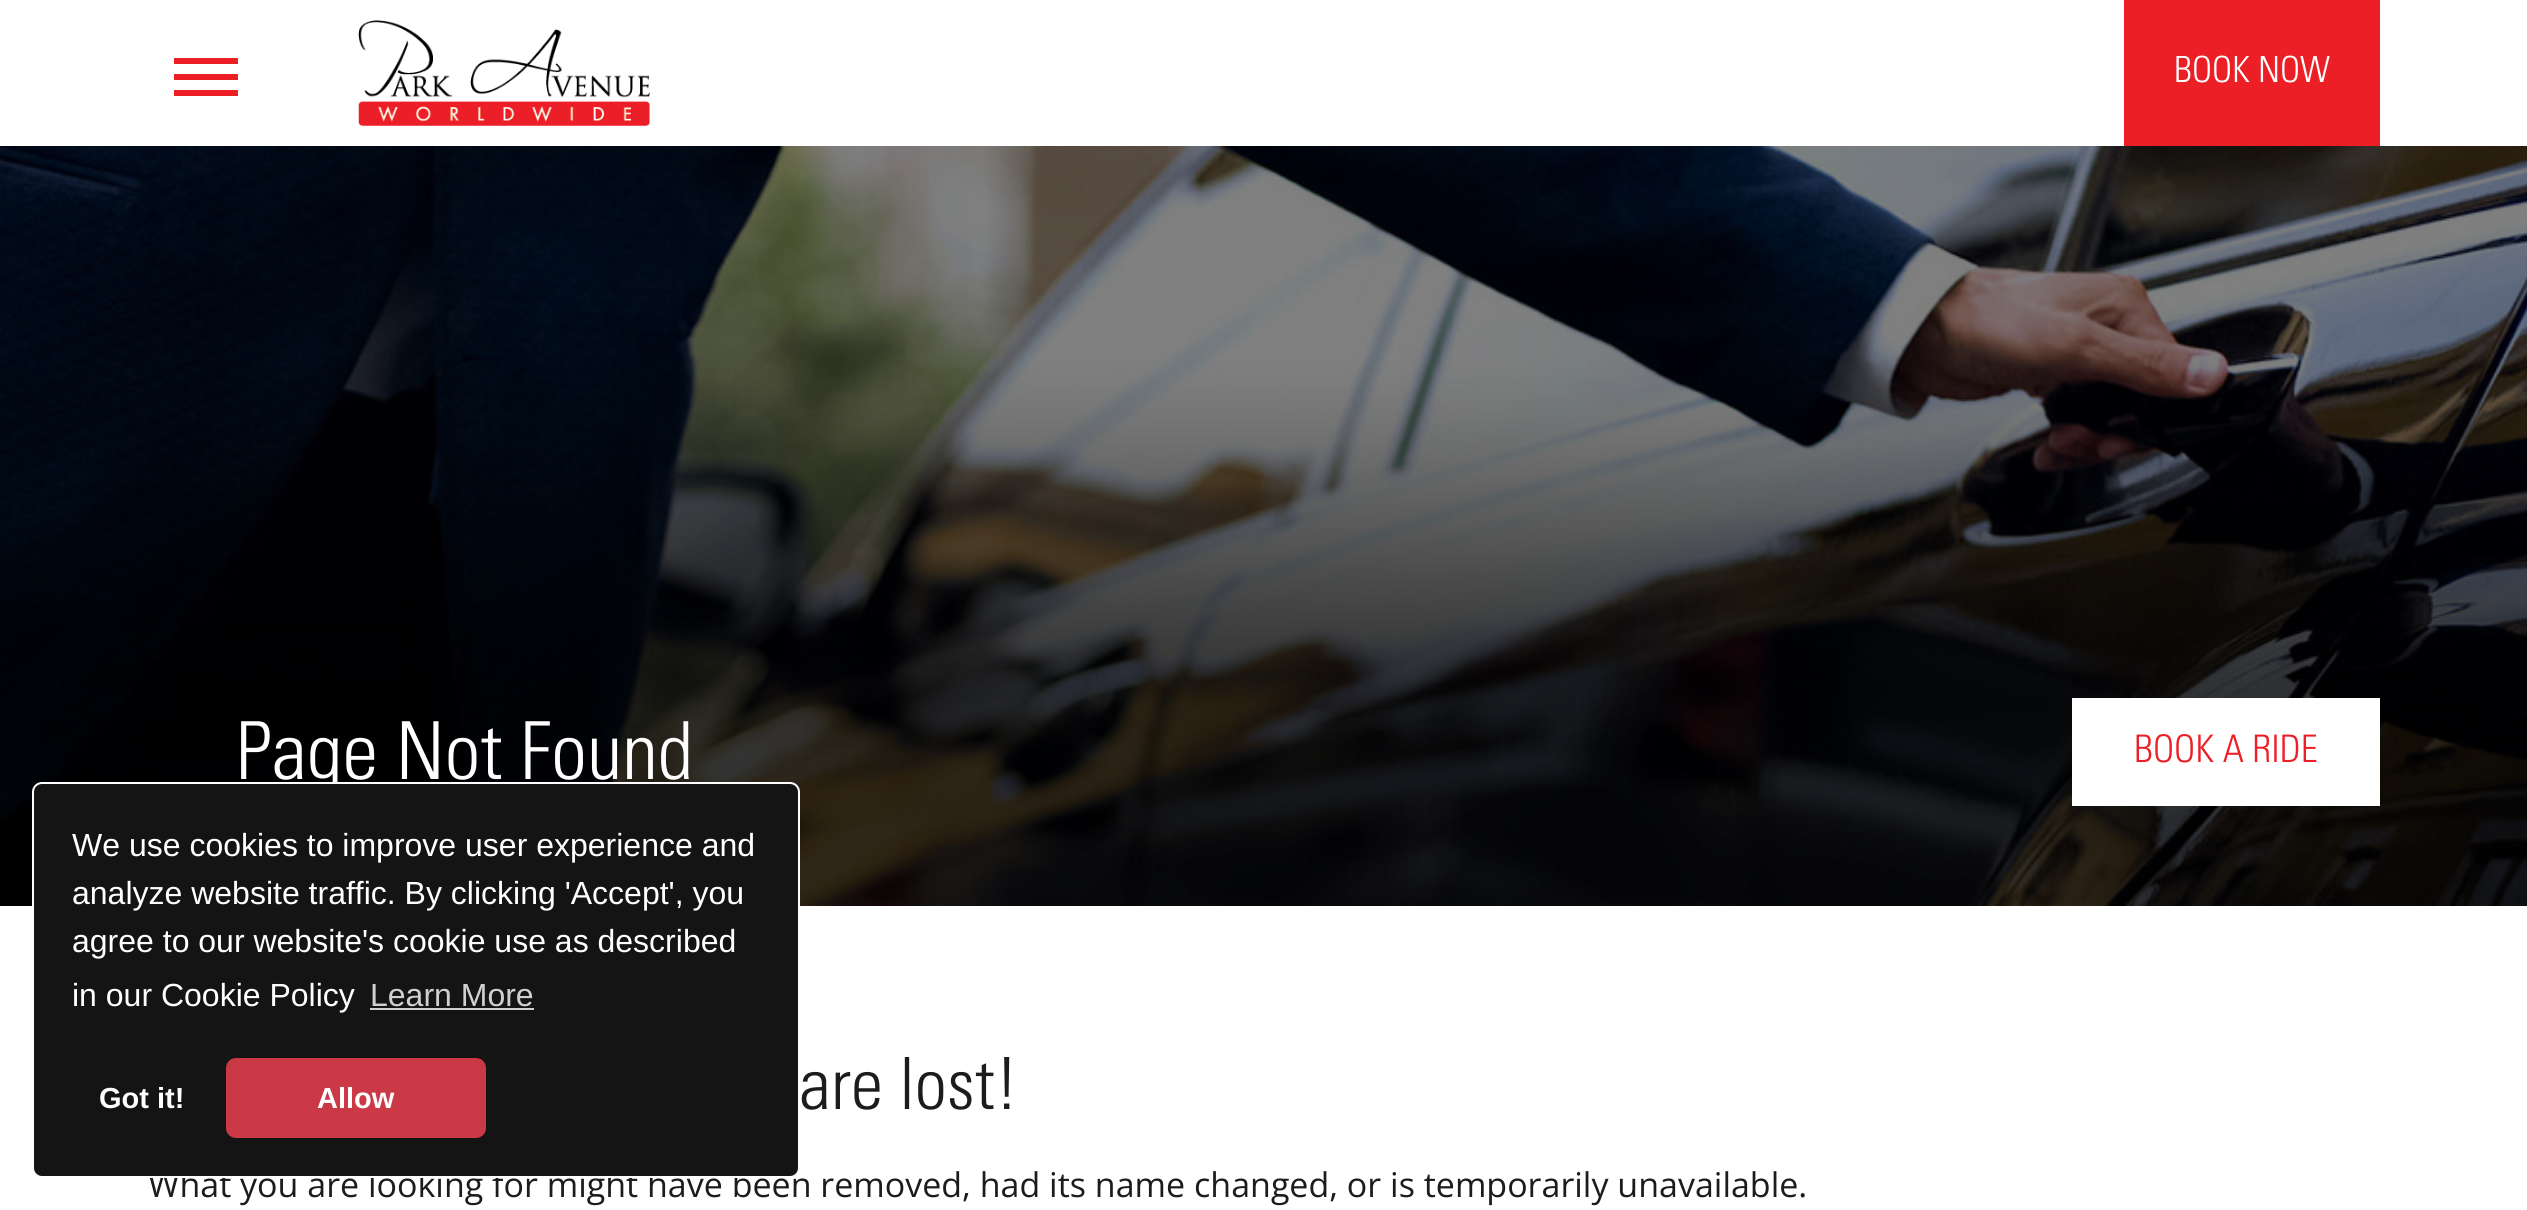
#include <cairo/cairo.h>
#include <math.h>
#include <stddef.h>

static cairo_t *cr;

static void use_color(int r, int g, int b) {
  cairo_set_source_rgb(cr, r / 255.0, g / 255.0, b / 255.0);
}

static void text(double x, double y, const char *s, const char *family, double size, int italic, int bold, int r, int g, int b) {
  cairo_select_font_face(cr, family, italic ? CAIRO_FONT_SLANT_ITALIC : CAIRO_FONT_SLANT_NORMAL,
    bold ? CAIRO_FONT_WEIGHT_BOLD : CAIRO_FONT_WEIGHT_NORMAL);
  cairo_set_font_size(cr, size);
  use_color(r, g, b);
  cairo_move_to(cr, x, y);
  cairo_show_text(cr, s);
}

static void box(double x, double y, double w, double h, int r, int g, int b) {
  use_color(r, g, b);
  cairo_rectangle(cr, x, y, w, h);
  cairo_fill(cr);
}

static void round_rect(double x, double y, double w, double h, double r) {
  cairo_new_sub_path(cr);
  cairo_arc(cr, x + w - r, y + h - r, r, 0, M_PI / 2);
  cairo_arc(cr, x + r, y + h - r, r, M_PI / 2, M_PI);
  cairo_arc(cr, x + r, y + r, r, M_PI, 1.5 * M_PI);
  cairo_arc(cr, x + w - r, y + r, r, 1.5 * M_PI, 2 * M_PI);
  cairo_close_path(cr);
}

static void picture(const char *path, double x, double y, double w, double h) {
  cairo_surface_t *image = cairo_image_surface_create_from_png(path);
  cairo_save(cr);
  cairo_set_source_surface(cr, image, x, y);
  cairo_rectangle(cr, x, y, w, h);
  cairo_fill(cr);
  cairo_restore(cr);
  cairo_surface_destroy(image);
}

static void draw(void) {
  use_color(255, 255, 255);
  cairo_paint(cr);
  box(174, 58, 64, 6, 237, 31, 38);
  box(174, 74, 64, 6, 237, 31, 38);
  box(174, 90, 64, 6, 237, 31, 38);
  picture("img_01.png", 358, 20, 292, 106);
  box(2124, 0, 256, 146, 237, 31, 38);
  picture("img_02.png", 0, 146, 2527, 760);
  box(2072, 698, 308, 108, 255, 255, 255);
  text(2174, 82, "BOOK NOW", "Univers Light", 36, 0, 0, 255, 255, 255);
  text(236, 779, "Page Not Found", "Univers Light", 80, 0, 0, 255, 255, 255);
  text(2134, 762, "BOOK A RIDE", "Univers Light", 38, 0, 0, 237, 31, 38);
  text(799, 1109, "are lost!", "Univers Light", 72, 0, 0, 28, 28, 28);
  text(148, 1197, "What you are looking for might have been removed, had its name changed, or is temporarily unavailable.", "Open Sans", 34, 0, 0, 28, 28, 28);
  use_color(20, 20, 20);
  round_rect(33, 783, 766, 394, 9);
  cairo_fill_preserve(cr);
  use_color(255, 255, 255);
  cairo_stroke(cr);
  text(370, 1006, "Learn More", "Liberation Sans", 32, 0, 0, 208, 208, 208);
  box(370, 1008, 164, 2, 208, 208, 208);
  use_color(202, 57, 69);
  round_rect(226, 1058, 260, 80, 10);
  cairo_fill(cr);
  text(317, 1108, "Allow", "Liberation Sans", 29, 0, 1, 255, 255, 255);
  text(99, 1108, "Got it!", "Liberation Sans", 29, 0, 1, 255, 255, 255);
  text(72, 1006, "in our Cookie Policy", "Liberation Sans", 32, 0, 0, 255, 255, 255);
  text(72, 952, "agree to our website's cookie use as described", "Liberation Sans", 32, 0, 0, 255, 255, 255);
  text(72, 904, "analyze website traffic. By clicking 'Accept', you", "Liberation Sans", 32, 0, 0, 255, 255, 255);
  text(72, 856, "We use cookies to improve user experience and", "Liberation Sans", 32, 0, 0, 255, 255, 255);
}

int main(void) {
  cairo_surface_t *surface = cairo_image_surface_create(CAIRO_FORMAT_RGB24, 2527, 1210);
  cr = cairo_create(surface);
  cairo_font_options_t *options = cairo_font_options_create();
  cairo_font_options_set_hint_metrics(options, CAIRO_HINT_METRICS_OFF);
  cairo_font_options_set_hint_style(options, CAIRO_HINT_STYLE_NONE);
  cairo_set_font_options(cr, options);
  cairo_set_miter_limit(cr, 4);
  draw();
  cairo_surface_write_to_png(surface, "out.png");
  cairo_font_options_destroy(options);
  cairo_destroy(cr);
  cairo_surface_destroy(surface);
  return 0;
}
